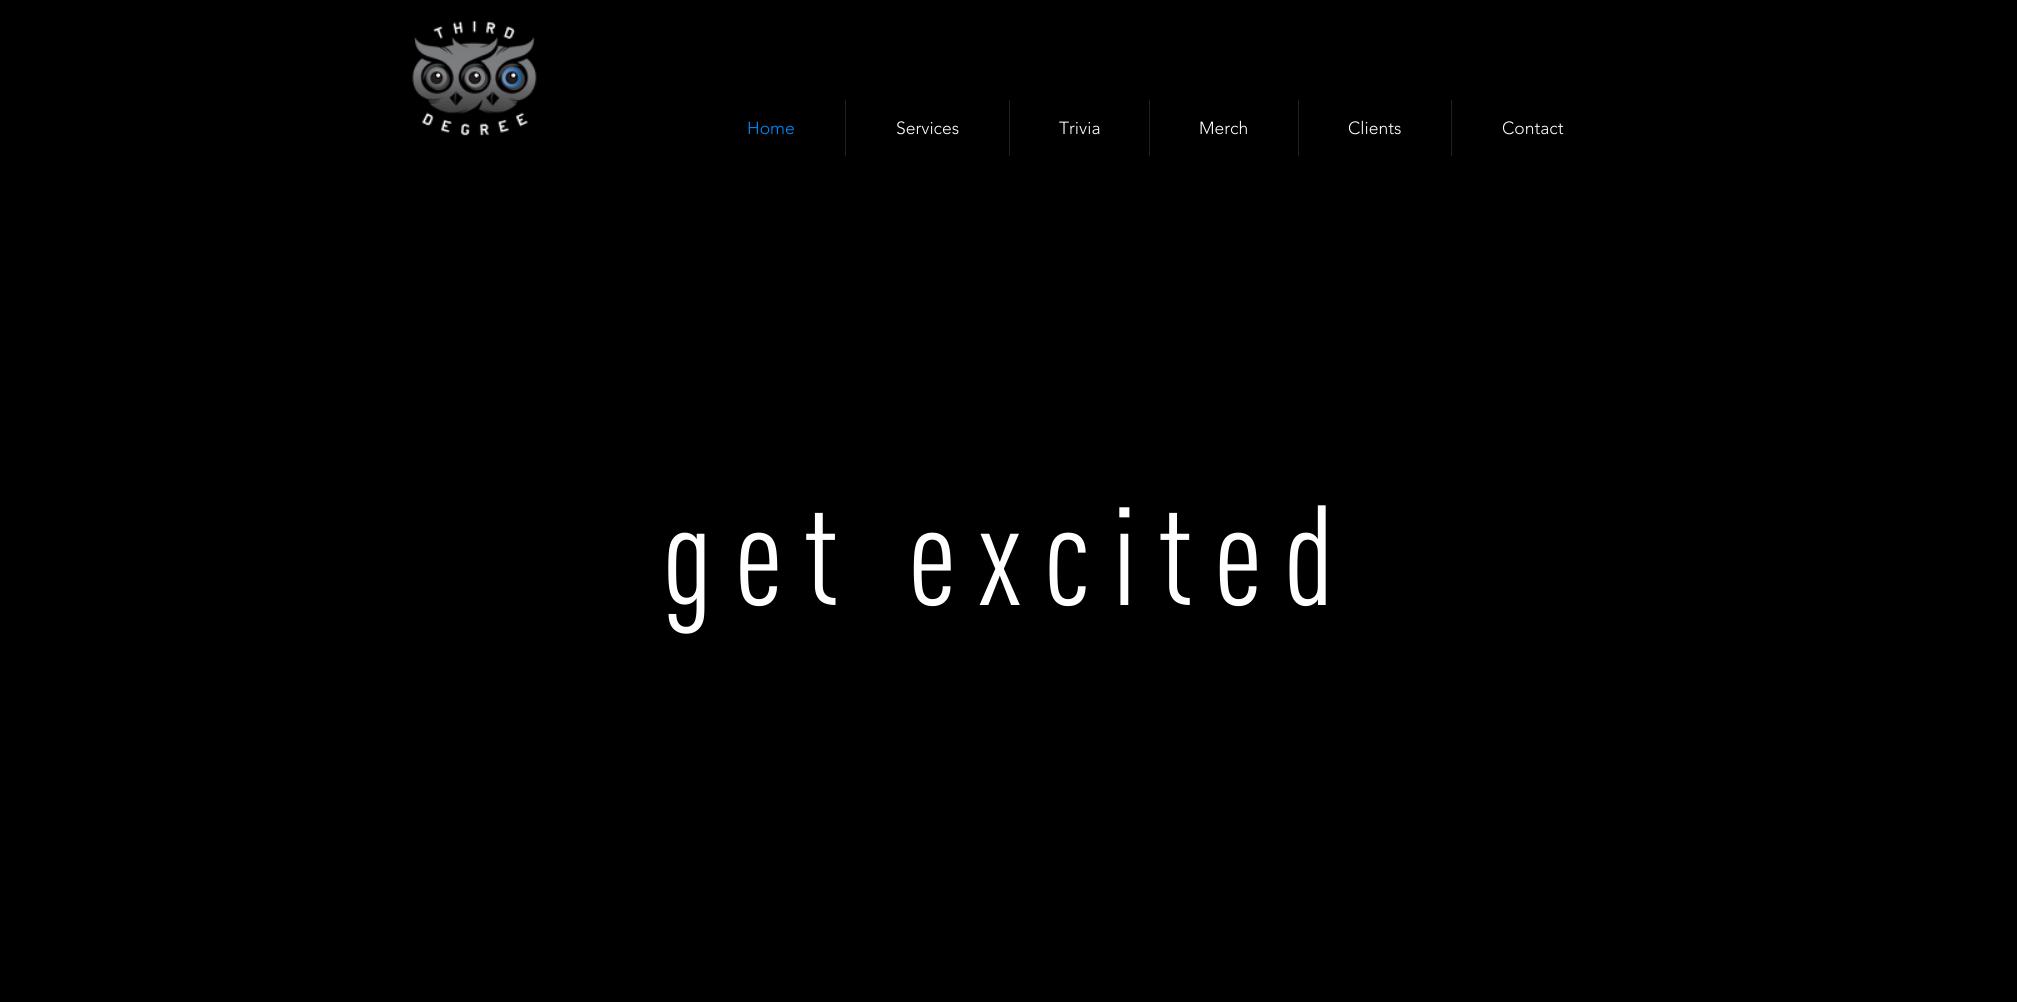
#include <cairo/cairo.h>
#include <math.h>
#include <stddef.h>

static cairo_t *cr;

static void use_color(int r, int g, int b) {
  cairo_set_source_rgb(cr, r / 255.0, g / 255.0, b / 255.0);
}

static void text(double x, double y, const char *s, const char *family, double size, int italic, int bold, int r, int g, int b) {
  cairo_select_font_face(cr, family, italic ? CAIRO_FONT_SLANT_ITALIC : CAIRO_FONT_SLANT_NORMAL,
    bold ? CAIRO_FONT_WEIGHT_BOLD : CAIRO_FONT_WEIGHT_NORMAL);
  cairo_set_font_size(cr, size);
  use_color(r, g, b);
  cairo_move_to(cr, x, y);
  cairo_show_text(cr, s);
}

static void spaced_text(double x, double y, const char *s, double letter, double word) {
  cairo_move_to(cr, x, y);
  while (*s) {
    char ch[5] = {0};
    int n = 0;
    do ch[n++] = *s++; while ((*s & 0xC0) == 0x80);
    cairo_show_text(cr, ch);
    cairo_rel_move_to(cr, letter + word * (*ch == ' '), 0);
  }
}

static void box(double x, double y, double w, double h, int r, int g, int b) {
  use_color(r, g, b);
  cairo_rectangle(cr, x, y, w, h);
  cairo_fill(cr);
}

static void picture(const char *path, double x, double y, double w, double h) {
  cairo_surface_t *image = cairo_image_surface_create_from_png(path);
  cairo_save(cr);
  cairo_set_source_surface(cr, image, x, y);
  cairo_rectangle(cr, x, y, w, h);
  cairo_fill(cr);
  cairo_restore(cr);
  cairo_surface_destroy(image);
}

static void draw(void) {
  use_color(0, 0, 0);
  cairo_paint(cr);
  picture("img_01.png", 412, 20, 125, 116);
  box(845, 100, 1, 56, 35, 29, 34);
  box(1009, 100, 1, 56, 35, 29, 34);
  box(1149, 100, 1, 56, 35, 29, 34);
  box(1298, 100, 1, 56, 35, 29, 34);
  box(1451, 100, 1, 56, 35, 29, 34);
  text(747, 134, "Home", "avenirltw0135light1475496 Light", 17.5, 0, 0, 0, 138, 252);
  text(896, 134, "Services", "avenirltw0135light1475496 Light", 17.5, 0, 0, 255, 255, 255);
  text(1059, 134, "Trivia", "avenirltw0135light1475496 Light", 17.5, 0, 0, 255, 255, 255);
  text(1199, 134, "Merch", "avenirltw0135light1475496 Light", 17.5, 0, 0, 255, 255, 255);
  text(1348, 134, "Clients", "avenirltw0135light1475496 Light", 17.5, 0, 0, 255, 255, 255);
  text(1502, 134, "Contact", "avenirltw0135light1475496 Light", 17.5, 0, 0, 255, 255, 255);
  cairo_select_font_face(cr, "DIN", CAIRO_FONT_SLANT_NORMAL, CAIRO_FONT_WEIGHT_NORMAL);
  cairo_set_font_size(cr, 140);
  spaced_text(662, 605, "get excited", 21, 0);
}

int main(void) {
  cairo_surface_t *surface = cairo_image_surface_create(CAIRO_FORMAT_RGB24, 2017, 1002);
  cr = cairo_create(surface);
  cairo_font_options_t *options = cairo_font_options_create();
  cairo_font_options_set_hint_metrics(options, CAIRO_HINT_METRICS_OFF);
  cairo_font_options_set_hint_style(options, CAIRO_HINT_STYLE_NONE);
  cairo_set_font_options(cr, options);
  cairo_set_miter_limit(cr, 4);
  draw();
  cairo_surface_write_to_png(surface, "out.png");
  cairo_font_options_destroy(options);
  cairo_destroy(cr);
  cairo_surface_destroy(surface);
  return 0;
}
